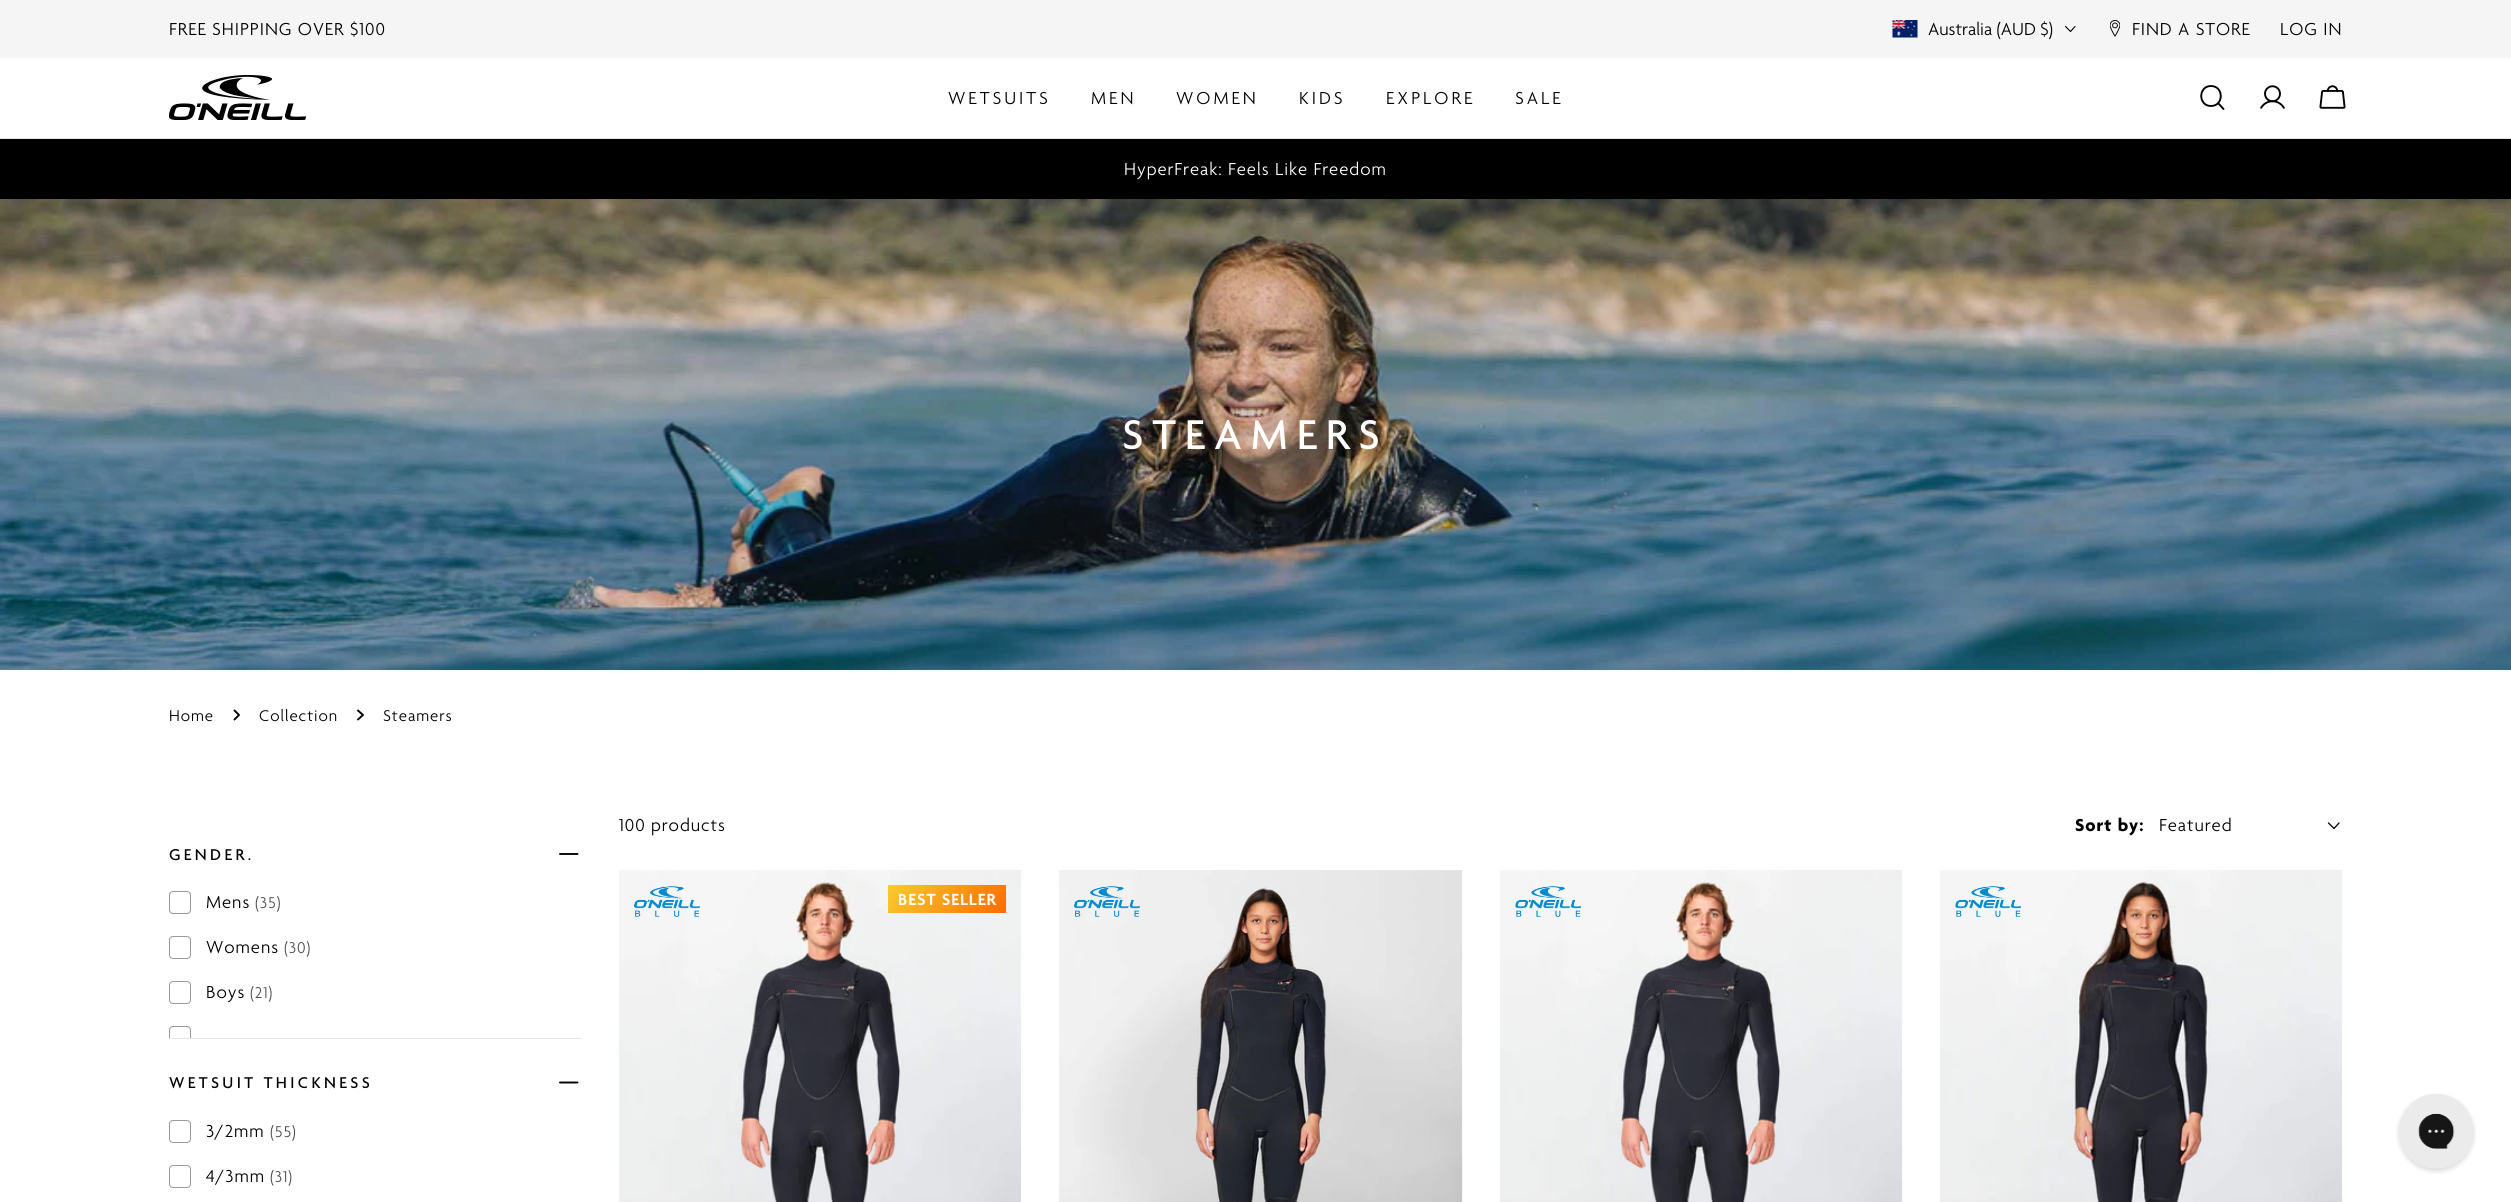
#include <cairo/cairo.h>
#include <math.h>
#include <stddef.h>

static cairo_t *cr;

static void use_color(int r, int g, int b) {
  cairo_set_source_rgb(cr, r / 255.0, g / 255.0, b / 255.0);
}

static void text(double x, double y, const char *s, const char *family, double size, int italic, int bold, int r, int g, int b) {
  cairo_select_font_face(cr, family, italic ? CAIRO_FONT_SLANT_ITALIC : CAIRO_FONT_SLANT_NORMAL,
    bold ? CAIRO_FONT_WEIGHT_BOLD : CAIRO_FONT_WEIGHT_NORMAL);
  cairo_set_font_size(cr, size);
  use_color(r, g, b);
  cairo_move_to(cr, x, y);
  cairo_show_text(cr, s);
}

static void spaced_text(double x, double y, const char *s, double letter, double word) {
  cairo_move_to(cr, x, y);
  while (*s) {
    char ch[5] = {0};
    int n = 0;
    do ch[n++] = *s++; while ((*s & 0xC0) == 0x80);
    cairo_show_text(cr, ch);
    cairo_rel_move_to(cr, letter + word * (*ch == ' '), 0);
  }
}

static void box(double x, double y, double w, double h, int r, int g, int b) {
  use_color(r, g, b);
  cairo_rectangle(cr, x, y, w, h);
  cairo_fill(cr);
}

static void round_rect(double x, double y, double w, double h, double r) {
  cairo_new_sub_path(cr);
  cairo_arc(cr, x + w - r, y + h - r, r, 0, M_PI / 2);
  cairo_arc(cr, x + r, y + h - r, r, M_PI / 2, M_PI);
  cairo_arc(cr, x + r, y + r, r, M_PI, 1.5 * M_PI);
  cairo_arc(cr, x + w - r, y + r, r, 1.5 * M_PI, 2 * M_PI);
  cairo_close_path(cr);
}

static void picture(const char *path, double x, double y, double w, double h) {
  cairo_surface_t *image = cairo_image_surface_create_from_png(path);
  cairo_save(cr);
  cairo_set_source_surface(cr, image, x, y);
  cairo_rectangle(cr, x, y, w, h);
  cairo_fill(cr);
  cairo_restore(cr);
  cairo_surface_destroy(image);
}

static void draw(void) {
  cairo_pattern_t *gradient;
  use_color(255, 255, 255);
  cairo_paint(cr);
  box(0, 0, 2511, 58, 245, 245, 245);
  picture("img_01.png", 1892, 20, 26, 18);
  cairo_new_path(cr);
  cairo_move_to(cr, 2075, 26.5);
  cairo_line_to(cr, 2070.5, 31.5);
  cairo_line_to(cr, 2065.5, 26.5);
  use_color(0, 0, 0);
  cairo_set_line_width(cr, 1.1);
  cairo_set_line_cap(cr, CAIRO_LINE_CAP_ROUND);
  cairo_set_line_join(cr, CAIRO_LINE_JOIN_ROUND);
  cairo_stroke(cr);
  picture("img_02.png", 2110, 20, 10, 17);
  box(0, 138, 2511, 1, 230, 230, 230);
  picture("img_03.png", 169, 75, 137, 45);
  cairo_new_path(cr);
  cairo_move_to(cr, 2211, 106);
  cairo_curve_to(cr, 2224, 106, 2224, 86, 2211, 86);
  cairo_curve_to(cr, 2198, 86, 2198, 106, 2211, 106);
  cairo_close_path(cr);
  cairo_move_to(cr, 2218, 103);
  cairo_line_to(cr, 2223.5, 109);
  use_color(0, 0, 0);
  cairo_set_line_width(cr, 1.9);
  cairo_stroke(cr);
  picture("img_04.png", 2260, 85, 25, 24);
  picture("img_05.png", 2319, 85, 27, 24);
  box(0, 139, 2511, 60, 0, 0, 0);
  picture("img_06.png", 0, 199, 2511, 471);
  cairo_new_path(cr);
  cairo_move_to(cr, 234.5, 710.5);
  cairo_line_to(cr, 239, 715);
  cairo_line_to(cr, 234.5, 719.5);
  cairo_stroke(cr);
  cairo_new_path(cr);
  cairo_move_to(cr, 358, 710.5);
  cairo_line_to(cr, 363, 715);
  cairo_line_to(cr, 358, 719.5);
  cairo_stroke(cr);
  box(169, 1038, 412, 1, 230, 230, 230);
  cairo_new_path(cr);
  cairo_move_to(cr, 560, 854);
  cairo_line_to(cr, 577.5, 854);
  cairo_move_to(cr, 560, 854);
  cairo_line_to(cr, 577.5, 854);
  use_color(0, 0, 0);
  cairo_stroke(cr);
  round_rect(169.5, 891.5, 21, 22, 3.5);
  use_color(153, 153, 153);
  cairo_set_line_width(cr, 1);
  cairo_set_line_cap(cr, CAIRO_LINE_CAP_BUTT);
  cairo_set_line_join(cr, CAIRO_LINE_JOIN_MITER);
  cairo_stroke(cr);
  round_rect(169.5, 936.5, 21, 22, 3.5);
  cairo_stroke(cr);
  round_rect(169.5, 981.5, 21, 22, 3.5);
  cairo_stroke(cr);
  cairo_save(cr);
  cairo_rectangle(cr, 169, 888, 412, 150);
  cairo_clip(cr);
  round_rect(169.5, 1026.5, 21, 22, 3.5);
  cairo_stroke(cr);
  cairo_restore(cr);
  cairo_new_path(cr);
  cairo_move_to(cr, 560, 1082.5);
  cairo_line_to(cr, 577.5, 1082.5);
  cairo_move_to(cr, 560, 1082.5);
  cairo_line_to(cr, 577.5, 1082.5);
  use_color(0, 0, 0);
  cairo_set_line_width(cr, 1.9);
  cairo_set_line_cap(cr, CAIRO_LINE_CAP_ROUND);
  cairo_set_line_join(cr, CAIRO_LINE_JOIN_ROUND);
  cairo_stroke(cr);
  round_rect(169.5, 1120.5, 21, 22, 3.5);
  use_color(153, 153, 153);
  cairo_set_line_width(cr, 1);
  cairo_set_line_cap(cr, CAIRO_LINE_CAP_BUTT);
  cairo_set_line_join(cr, CAIRO_LINE_JOIN_MITER);
  cairo_stroke(cr);
  round_rect(169.5, 1165.5, 21, 22, 3.5);
  cairo_stroke(cr);
  cairo_new_path(cr);
  cairo_move_to(cr, 2339, 823);
  cairo_line_to(cr, 2334, 828.5);
  cairo_line_to(cr, 2328.5, 823);
  use_color(0, 0, 0);
  cairo_set_line_width(cr, 1.3);
  cairo_set_line_cap(cr, CAIRO_LINE_CAP_ROUND);
  cairo_set_line_join(cr, CAIRO_LINE_JOIN_ROUND);
  cairo_stroke(cr);
  picture("img_07.png", 619, 870, 402, 332);
  picture("img_08.png", 634, 886, 66, 31);
  gradient = cairo_pattern_create_linear(900, 867, 994, 931);
  cairo_pattern_add_color_stop_rgba(gradient, 0, 0.973, 0.8, 0.184, 1);
  cairo_pattern_add_color_stop_rgba(gradient, 1, 1, 0.42, 0, 1);
  cairo_set_source(cr, gradient);
  cairo_pattern_destroy(gradient);
  cairo_rectangle(cr, 888, 885, 118, 28);
  cairo_fill(cr);
  picture("img_09.png", 1059, 870, 404, 332);
  picture("img_10.png", 1074, 886, 66, 31);
  picture("img_11.png", 1500, 870, 403, 332);
  picture("img_12.png", 1515, 886, 66, 31);
  picture("img_13.png", 1940, 870, 403, 332);
  picture("img_14.png", 1955, 886, 66, 31);
  picture("img_15.png", 2396, 1093, 80, 81);
  cairo_select_font_face(cr, "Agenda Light", CAIRO_FONT_SLANT_NORMAL, CAIRO_FONT_WEIGHT_NORMAL);
  cairo_set_font_size(cr, 18.75);
  use_color(0, 0, 0);
  spaced_text(169, 35, "FREE SHIPPING OVER $100", 0.95, 0);
  text(1928, 35, "Australia (AUD $)", "Agenda Light", 18.75, 0, 0, 0, 0, 0);
  spaced_text(2132, 35, "FIND A STORE", 0.95, 0);
  spaced_text(2280, 35, "LOG IN", 0.95, 0);
  spaced_text(948, 104, "WETSUITS", 3, 0);
  spaced_text(1091, 104, "MEN", 3, 0);
  spaced_text(1176, 104, "WOMEN", 3, 0);
  spaced_text(1299, 104, "KIDS", 3, 0);
  spaced_text(1386, 104, "EXPLORE", 3, 0);
  spaced_text(1515, 104, "SALE", 3, 0);
  use_color(255, 255, 255);
  spaced_text(1124, 175, "HyperFreak: Feels Like Freedom", 0.95, 0);
  cairo_select_font_face(cr, "Agenda Medium", CAIRO_FONT_SLANT_NORMAL, CAIRO_FONT_WEIGHT_NORMAL);
  cairo_set_font_size(cr, 45);
  spaced_text(1122, 449, "STEAMERS", 9, 0);
  cairo_select_font_face(cr, "Agenda Light", CAIRO_FONT_SLANT_NORMAL, CAIRO_FONT_WEIGHT_NORMAL);
  cairo_set_font_size(cr, 16.9);
  use_color(0, 0, 0);
  spaced_text(169, 721, "Home", 0.95, 0);
  spaced_text(259, 721, "Collection", 0.95, 0);
  spaced_text(383, 721, "Steamers", 0.95, 0);
  cairo_select_font_face(cr, "Agenda Medium", CAIRO_FONT_SLANT_NORMAL, CAIRO_FONT_WEIGHT_NORMAL);
  spaced_text(169, 860, "GENDER.", 3.4, 0);
  cairo_select_font_face(cr, "Agenda Light", CAIRO_FONT_SLANT_NORMAL, CAIRO_FONT_WEIGHT_NORMAL);
  cairo_set_font_size(cr, 18.75);
  spaced_text(206, 908, "Mens", 0.95, 0);
  cairo_set_font_size(cr, 16.9);
  use_color(79, 79, 79);
  spaced_text(255, 908, "(35)", 0.95, 0);
  cairo_set_font_size(cr, 18.75);
  use_color(0, 0, 0);
  spaced_text(206, 953, "Womens", 0.95, 0);
  cairo_set_font_size(cr, 16.9);
  use_color(79, 79, 79);
  spaced_text(284, 953, "(30)", 0.95, 0);
  cairo_set_font_size(cr, 18.75);
  use_color(0, 0, 0);
  spaced_text(206, 998, "Boys", 0.95, 0);
  cairo_set_font_size(cr, 16.9);
  use_color(79, 79, 79);
  spaced_text(250, 998, "(21)", 0.95, 0);
  cairo_select_font_face(cr, "Agenda Medium", CAIRO_FONT_SLANT_NORMAL, CAIRO_FONT_WEIGHT_NORMAL);
  use_color(0, 0, 0);
  spaced_text(169, 1088, "WETSUIT THICKNESS", 3.4, 0);
  cairo_select_font_face(cr, "Agenda Light", CAIRO_FONT_SLANT_NORMAL, CAIRO_FONT_WEIGHT_NORMAL);
  cairo_set_font_size(cr, 18.75);
  spaced_text(206, 1137, "3/2mm", 0.95, 0);
  cairo_set_font_size(cr, 16.9);
  use_color(79, 79, 79);
  spaced_text(270, 1137, "(55)", 0.95, 0);
  cairo_set_font_size(cr, 18.75);
  use_color(0, 0, 0);
  spaced_text(206, 1182, "4/3mm", 0.95, 0);
  cairo_set_font_size(cr, 16.9);
  use_color(79, 79, 79);
  spaced_text(270, 1182, "(31)", 0.95, 0);
  cairo_set_font_size(cr, 18.75);
  use_color(0, 0, 0);
  spaced_text(619, 831, "100 products", 0.95, 0);
  cairo_select_font_face(cr, "Agenda", CAIRO_FONT_SLANT_NORMAL, CAIRO_FONT_WEIGHT_BOLD);
  spaced_text(2075, 831, "Sort by:", 0.95, 0);
  cairo_select_font_face(cr, "Agenda Light", CAIRO_FONT_SLANT_NORMAL, CAIRO_FONT_WEIGHT_NORMAL);
  spaced_text(2159, 831, "Featured", 0.95, 0);
  cairo_select_font_face(cr, "Agenda SemiBold", CAIRO_FONT_SLANT_NORMAL, CAIRO_FONT_WEIGHT_NORMAL);
  cairo_set_font_size(cr, 17.5);
  use_color(255, 255, 255);
  spaced_text(898, 905, "BEST SELLER", 0.95, 0);
}

int main(void) {
  cairo_surface_t *surface = cairo_image_surface_create(CAIRO_FORMAT_RGB24, 2511, 1202);
  cr = cairo_create(surface);
  cairo_font_options_t *options = cairo_font_options_create();
  cairo_font_options_set_hint_metrics(options, CAIRO_HINT_METRICS_OFF);
  cairo_font_options_set_hint_style(options, CAIRO_HINT_STYLE_NONE);
  cairo_set_font_options(cr, options);
  cairo_set_miter_limit(cr, 4);
  draw();
  cairo_surface_write_to_png(surface, "out.png");
  cairo_font_options_destroy(options);
  cairo_destroy(cr);
  cairo_surface_destroy(surface);
  return 0;
}
